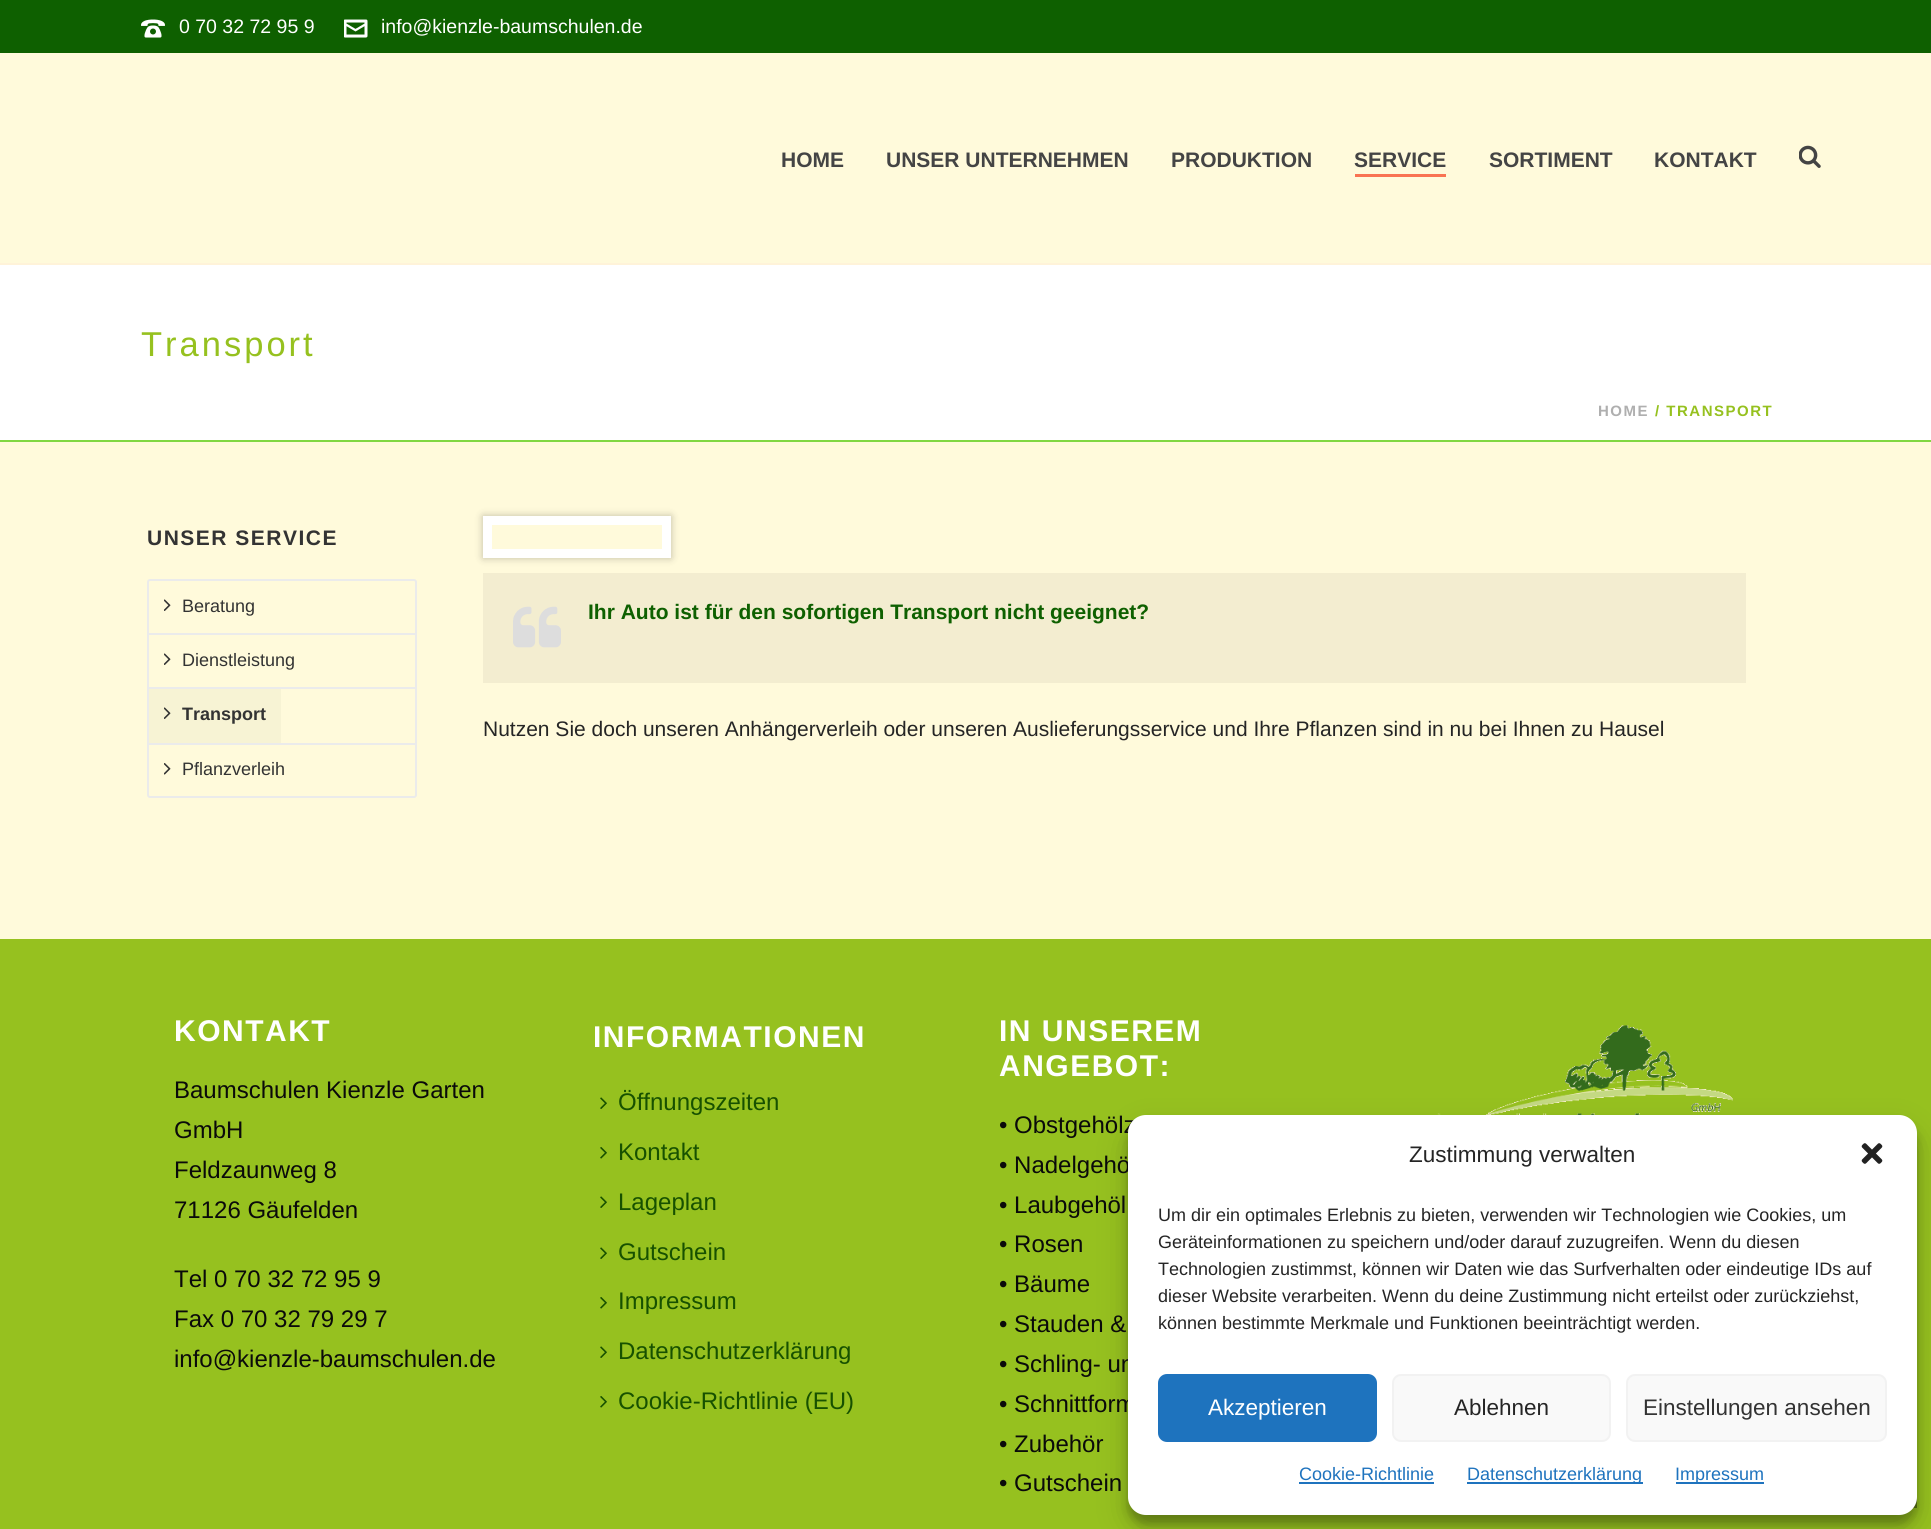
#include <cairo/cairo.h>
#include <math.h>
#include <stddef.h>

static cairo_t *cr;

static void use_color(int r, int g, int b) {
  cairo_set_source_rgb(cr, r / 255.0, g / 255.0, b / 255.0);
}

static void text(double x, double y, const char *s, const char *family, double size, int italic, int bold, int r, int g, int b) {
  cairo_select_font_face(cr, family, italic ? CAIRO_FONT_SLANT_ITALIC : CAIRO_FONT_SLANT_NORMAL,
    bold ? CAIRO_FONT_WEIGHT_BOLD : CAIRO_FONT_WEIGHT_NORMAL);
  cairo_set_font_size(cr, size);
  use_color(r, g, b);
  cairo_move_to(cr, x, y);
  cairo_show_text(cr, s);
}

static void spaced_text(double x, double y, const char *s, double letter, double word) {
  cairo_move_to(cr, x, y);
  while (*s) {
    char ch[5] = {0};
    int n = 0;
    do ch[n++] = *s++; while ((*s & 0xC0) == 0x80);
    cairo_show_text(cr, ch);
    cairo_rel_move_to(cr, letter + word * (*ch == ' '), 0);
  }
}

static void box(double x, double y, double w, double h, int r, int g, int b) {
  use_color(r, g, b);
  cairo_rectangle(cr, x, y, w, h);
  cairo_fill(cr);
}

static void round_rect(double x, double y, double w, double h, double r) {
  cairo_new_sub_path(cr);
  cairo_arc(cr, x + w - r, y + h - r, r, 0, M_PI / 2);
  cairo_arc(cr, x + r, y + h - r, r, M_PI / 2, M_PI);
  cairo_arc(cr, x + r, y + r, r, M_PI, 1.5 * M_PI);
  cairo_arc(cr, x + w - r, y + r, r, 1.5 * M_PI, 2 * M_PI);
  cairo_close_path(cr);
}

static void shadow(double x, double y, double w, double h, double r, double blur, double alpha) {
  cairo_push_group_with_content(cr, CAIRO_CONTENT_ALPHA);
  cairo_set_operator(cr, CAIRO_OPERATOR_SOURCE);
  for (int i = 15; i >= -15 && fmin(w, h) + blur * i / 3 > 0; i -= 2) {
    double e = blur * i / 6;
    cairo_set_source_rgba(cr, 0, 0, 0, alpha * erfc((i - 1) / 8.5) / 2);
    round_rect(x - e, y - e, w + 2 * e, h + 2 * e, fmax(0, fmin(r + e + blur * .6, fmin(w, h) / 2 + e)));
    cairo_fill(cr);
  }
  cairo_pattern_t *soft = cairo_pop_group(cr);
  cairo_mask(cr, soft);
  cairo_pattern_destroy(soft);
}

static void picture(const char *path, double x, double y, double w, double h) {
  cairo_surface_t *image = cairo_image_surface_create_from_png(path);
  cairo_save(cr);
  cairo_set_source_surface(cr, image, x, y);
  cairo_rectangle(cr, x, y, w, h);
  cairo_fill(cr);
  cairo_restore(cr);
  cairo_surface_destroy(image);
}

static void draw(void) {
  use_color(255, 255, 255);
  cairo_paint(cr);
  box(0, 440, 1931, 2, 129, 215, 66);
  box(0, 0, 1931, 53, 14, 96, 0);
  picture("img_01.png", 141, 19, 24, 19);
  picture("img_02.png", 344, 19, 24, 19);
  box(0, 263, 1931, 2, 255, 243, 217);
  box(0, 53, 1931, 210, 255, 250, 219);
  box(1355, 174, 91, 3, 249, 115, 82);
  picture("img_03.png", 1799, 145, 22, 23);
  box(0, 442, 1931, 497, 255, 250, 219);
  round_rect(148, 580, 268, 217, 2);
  use_color(235, 235, 235);
  cairo_stroke(cr);
  box(149, 633, 267, 2, 235, 235, 235);
  picture("img_04.png", 164, 599, 7, 12);
  box(149, 687, 267, 2, 235, 235, 235);
  picture("img_04.png", 164, 653, 7, 12);
  box(149, 743, 267, 2, 235, 235, 235);
  box(149, 689, 132, 54, 247, 243, 212);
  picture("img_05.png", 164, 707, 7, 12);
  picture("img_06.png", 164, 763, 7, 12);
  cairo_save(cr);
  cairo_set_fill_rule(cr, CAIRO_FILL_RULE_EVEN_ODD);
  cairo_new_path(cr);
  cairo_move_to(cr, 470, 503);
  cairo_line_to(cr, 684, 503);
  cairo_line_to(cr, 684, 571);
  cairo_line_to(cr, 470, 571);
  cairo_close_path(cr);
  cairo_move_to(cr, 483, 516);
  cairo_line_to(cr, 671, 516);
  cairo_line_to(cr, 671, 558);
  cairo_line_to(cr, 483, 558);
  cairo_close_path(cr);
  cairo_clip(cr);
  use_color(0, 0, 0);
  shadow(483, 516, 188, 42, 0, 4, 0.25);
  cairo_restore(cr);
  cairo_rectangle(cr, 487.5, 520.5, 179, 33);
  use_color(255, 255, 255);
  cairo_set_line_width(cr, 9);
  cairo_stroke(cr);
  box(483, 573, 1263, 110, 243, 237, 208);
  picture("img_07.png", 513, 606, 48, 42);
  box(0, 939, 1931, 590, 150, 193, 31);
  picture("img_08.png", 600, 1097, 7, 12);
  picture("img_09.png", 600, 1147, 7, 12);
  picture("img_08.png", 600, 1196, 7, 12);
  picture("img_08.png", 600, 1247, 7, 12);
  picture("img_09.png", 600, 1297, 7, 12);
  picture("img_08.png", 600, 1346, 7, 12);
  picture("img_09.png", 600, 1396, 7, 12);
  picture("img_10.png", 1437, 1025, 296, 90);
  box(1913, 1497, 4, 11, 90, 116, 19);
  use_color(0, 0, 0);
  shadow(1128, 1124, 789, 400, 18, 4.5, 0.23);
  shadow(1128, 1130, 789, 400, 18, 15, 0.19);
  text(179, 33, "0 70 32 72 95 9", "Liberation Sans", 19.5, 0, 0, 255, 255, 255);
  text(381, 33, "info@kienzle-baumschulen.de", "Liberation Sans", 19.5, 0, 0, 255, 255, 255);
  text(781, 167, "HOME", "Liberation Sans", 21, 0, 1, 68, 68, 68);
  text(886, 167, "UNSER UNTERNEHMEN", "Liberation Sans", 21, 0, 1, 68, 68, 68);
  text(1171, 167, "PRODUKTION", "Liberation Sans", 21, 0, 1, 68, 68, 68);
  text(1354, 167, "SERVICE", "Liberation Sans", 21, 0, 1, 68, 68, 68);
  text(1489, 167, "SORTIMENT", "Liberation Sans", 21, 0, 1, 68, 68, 68);
  text(1654, 167, "KONTAKT", "Liberation Sans", 21, 0, 1, 68, 68, 68);
  cairo_select_font_face(cr, "Liberation Sans", CAIRO_FONT_SLANT_NORMAL, CAIRO_FONT_WEIGHT_NORMAL);
  cairo_set_font_size(cr, 34.5);
  use_color(150, 193, 31);
  spaced_text(141, 356, "Transport", 3, 0);
  cairo_select_font_face(cr, "Liberation Sans", CAIRO_FONT_SLANT_NORMAL, CAIRO_FONT_WEIGHT_BOLD);
  cairo_set_font_size(cr, 15);
  use_color(175, 175, 175);
  spaced_text(1598, 416, "HOME", 1.5, 0);
  use_color(150, 193, 31);
  spaced_text(1655, 416, "/ TRANSPORT", 1.5, 0);
  cairo_set_font_size(cr, 21);
  use_color(51, 51, 51);
  spaced_text(147, 545, "UNSER SERVICE", 1.5, 0);
  text(182, 612, "Beratung", "Liberation Sans", 18, 0, 0, 51, 51, 51);
  text(182, 666, "Dienstleistung", "Liberation Sans", 18, 0, 0, 51, 51, 51);
  text(182, 720, "Transport", "Liberation Sans", 18, 0, 1, 51, 51, 51);
  text(182, 775, "Pflanzverleih", "Liberation Sans", 18, 0, 0, 51, 51, 51);
  text(588, 619, "Ihr Auto ist für den sofortigen Transport nicht geeignet?", "Liberation Sans", 21, 0, 1, 14, 96, 0);
  text(483, 736, "Nutzen Sie doch unseren Anhängerverleih oder unseren Auslieferungsservice und Ihre Pflanzen sind in nu bei Ihnen zu Hausel", "Liberation Sans", 21, 0, 0, 37, 37, 37);
  cairo_select_font_face(cr, "Liberation Sans", CAIRO_FONT_SLANT_NORMAL, CAIRO_FONT_WEIGHT_BOLD);
  cairo_set_font_size(cr, 30);
  use_color(255, 255, 255);
  spaced_text(174, 1041, "KONTAKT", 1.5, 0);
  text(174, 1098, "Baumschulen Kienzle Garten", "Liberation Sans", 24, 0, 0, 10, 10, 10);
  text(174, 1138, "GmbH", "Liberation Sans", 24, 0, 0, 10, 10, 10);
  text(174, 1178, "Feldzaunweg 8", "Liberation Sans", 24, 0, 0, 10, 10, 10);
  text(174, 1218, "71126 Gäufelden", "Liberation Sans", 24, 0, 0, 10, 10, 10);
  text(174, 1287, "Tel 0 70 32 72 95 9", "Liberation Sans", 24, 0, 0, 10, 10, 10);
  text(174, 1327, "Fax 0 70 32 79 29 7", "Liberation Sans", 24, 0, 0, 10, 10, 10);
  text(174, 1367, "info@kienzle-baumschulen.de", "Liberation Sans", 24, 0, 0, 10, 10, 10);
  cairo_select_font_face(cr, "Liberation Sans", CAIRO_FONT_SLANT_NORMAL, CAIRO_FONT_WEIGHT_BOLD);
  cairo_set_font_size(cr, 30);
  use_color(255, 255, 255);
  spaced_text(593, 1047, "INFORMATIONEN", 1.5, 0);
  text(618, 1110, "Öffnungszeiten", "Liberation Sans", 24, 0, 0, 23, 81, 0);
  text(618, 1160, "Kontakt", "Liberation Sans", 24, 0, 0, 23, 81, 0);
  text(618, 1210, "Lageplan", "Liberation Sans", 24, 0, 0, 23, 81, 0);
  text(618, 1260, "Gutschein", "Liberation Sans", 24, 0, 0, 23, 81, 0);
  text(618, 1309, "Impressum", "Liberation Sans", 24, 0, 0, 23, 81, 0);
  text(618, 1359, "Datenschutzerklärung", "Liberation Sans", 24, 0, 0, 23, 81, 0);
  text(618, 1409, "Cookie-Richtlinie (EU)", "Liberation Sans", 24, 0, 0, 23, 81, 0);
  cairo_select_font_face(cr, "Liberation Sans", CAIRO_FONT_SLANT_NORMAL, CAIRO_FONT_WEIGHT_BOLD);
  cairo_set_font_size(cr, 30);
  use_color(255, 255, 255);
  spaced_text(999, 1041, "IN UNSEREM", 1.5, 0);
  spaced_text(999, 1076, "ANGEBOT:", 1.5, 0);
  text(999, 1133, "• Obstgehölz", "Liberation Sans", 24, 0, 0, 10, 10, 10);
  text(999, 1173, "• Nadelgehö", "Liberation Sans", 24, 0, 0, 10, 10, 10);
  text(999, 1213, "• Laubgehöl", "Liberation Sans", 24, 0, 0, 10, 10, 10);
  text(999, 1252, "• Rosen", "Liberation Sans", 24, 0, 0, 10, 10, 10);
  text(999, 1292, "• Bäume", "Liberation Sans", 24, 0, 0, 10, 10, 10);
  text(999, 1332, "• Stauden &", "Liberation Sans", 24, 0, 0, 10, 10, 10);
  text(999, 1372, "• Schling- un", "Liberation Sans", 24, 0, 0, 10, 10, 10);
  text(999, 1412, "• Schnittform", "Liberation Sans", 24, 0, 0, 10, 10, 10);
  text(999, 1452, "• Zubehör", "Liberation Sans", 24, 0, 0, 10, 10, 10);
  text(999, 1491, "• Gutschein", "Liberation Sans", 24, 0, 0, 10, 10, 10);
  use_color(255, 255, 255);
  round_rect(1128, 1115, 789, 400, 18);
  cairo_fill(cr);
  text(1409, 1162, "Zustimmung verwalten", "Liberation Sans", 22.5, 0, 0, 37, 37, 37);
  picture("img_11.png", 1861, 1143, 22, 21);
  text(1158, 1221, "Um dir ein optimales Erlebnis zu bieten, verwenden wir Technologien wie Cookies, um", "Liberation Sans", 18, 0, 0, 37, 37, 37);
  text(1158, 1248, "Geräteinformationen zu speichern und/oder darauf zuzugreifen. Wenn du diesen", "Liberation Sans", 18, 0, 0, 37, 37, 37);
  text(1158, 1275, "Technologien zustimmst, können wir Daten wie das Surfverhalten oder eindeutige IDs auf", "Liberation Sans", 18, 0, 0, 37, 37, 37);
  text(1158, 1302, "dieser Website verarbeiten. Wenn du deine Zustimmung nicht erteilst oder zurückziehst,", "Liberation Sans", 18, 0, 0, 37, 37, 37);
  text(1158, 1329, "können bestimmte Merkmale und Funktionen beeinträchtigt werden.", "Liberation Sans", 18, 0, 0, 37, 37, 37);
  use_color(30, 115, 190);
  round_rect(1159, 1375, 217, 66, 8);
  cairo_fill_preserve(cr);
  cairo_set_line_width(cr, 2);
  cairo_stroke(cr);
  text(1208, 1415, "Akzeptieren", "Liberation Sans", 22.5, 0, 0, 255, 255, 255);
  use_color(249, 249, 249);
  round_rect(1393, 1375, 217, 66, 8);
  cairo_fill_preserve(cr);
  use_color(242, 242, 242);
  cairo_stroke(cr);
  text(1454, 1415, "Ablehnen", "Liberation Sans", 22.5, 0, 0, 37, 37, 37);
  use_color(249, 249, 249);
  round_rect(1627, 1375, 259, 66, 8);
  cairo_fill_preserve(cr);
  use_color(242, 242, 242);
  cairo_stroke(cr);
  text(1643, 1415, "Einstellungen ansehen", "Liberation Sans", 22.5, 0, 0, 51, 51, 51);
  text(1299, 1480, "Cookie-Richtlinie", "Liberation Sans", 18, 0, 0, 30, 115, 190);
  box(1299, 1482, 135, 2, 30, 115, 190);
  box(1467, 1482, 176, 2, 30, 115, 190);
  text(1467, 1480, "Datenschutzerklärung", "Liberation Sans", 18, 0, 0, 30, 115, 190);
  box(1676, 1482, 88, 2, 30, 115, 190);
  text(1675, 1480, "Impressum", "Liberation Sans", 18, 0, 0, 30, 115, 190);
}

int main(void) {
  cairo_surface_t *surface = cairo_image_surface_create(CAIRO_FORMAT_RGB24, 1931, 1529);
  cr = cairo_create(surface);
  cairo_font_options_t *options = cairo_font_options_create();
  cairo_font_options_set_hint_metrics(options, CAIRO_HINT_METRICS_OFF);
  cairo_font_options_set_hint_style(options, CAIRO_HINT_STYLE_NONE);
  cairo_set_font_options(cr, options);
  cairo_set_miter_limit(cr, 4);
  draw();
  cairo_surface_write_to_png(surface, "out.png");
  cairo_font_options_destroy(options);
  cairo_destroy(cr);
  cairo_surface_destroy(surface);
  return 0;
}
